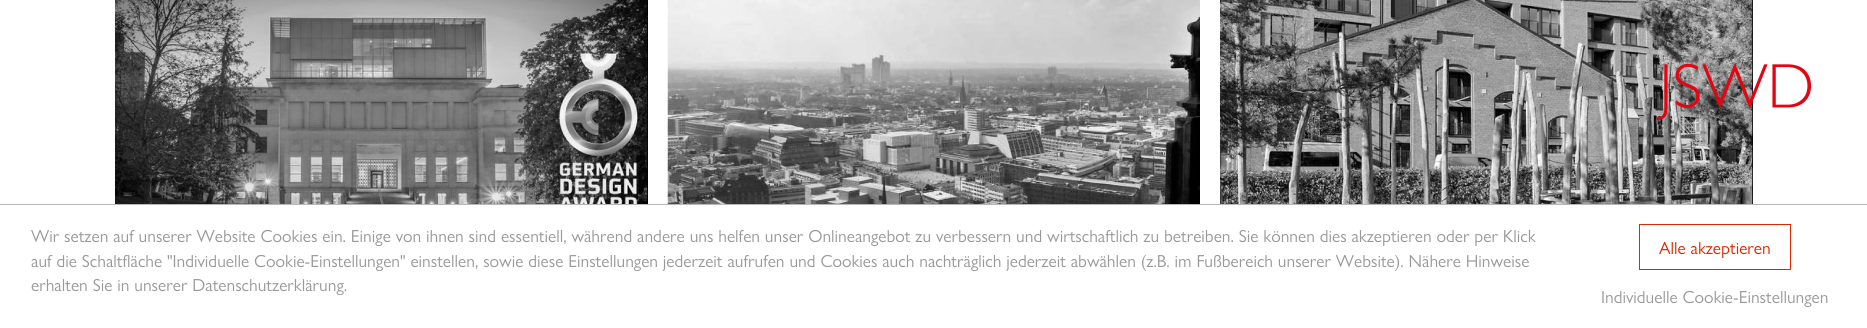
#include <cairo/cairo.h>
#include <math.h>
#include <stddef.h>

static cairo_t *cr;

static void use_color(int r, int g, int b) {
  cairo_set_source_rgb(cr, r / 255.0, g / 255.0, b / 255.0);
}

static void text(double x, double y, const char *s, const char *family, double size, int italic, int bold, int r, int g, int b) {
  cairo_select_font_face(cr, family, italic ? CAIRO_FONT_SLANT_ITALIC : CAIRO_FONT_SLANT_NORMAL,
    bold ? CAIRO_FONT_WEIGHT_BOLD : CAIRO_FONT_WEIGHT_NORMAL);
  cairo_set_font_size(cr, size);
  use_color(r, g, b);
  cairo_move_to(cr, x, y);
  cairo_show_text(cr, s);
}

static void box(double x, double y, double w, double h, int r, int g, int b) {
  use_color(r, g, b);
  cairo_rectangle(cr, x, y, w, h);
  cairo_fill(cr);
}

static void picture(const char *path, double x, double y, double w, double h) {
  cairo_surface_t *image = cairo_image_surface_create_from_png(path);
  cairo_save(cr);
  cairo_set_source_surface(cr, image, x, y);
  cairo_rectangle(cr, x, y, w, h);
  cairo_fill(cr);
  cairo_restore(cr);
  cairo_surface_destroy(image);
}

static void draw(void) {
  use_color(255, 255, 255);
  cairo_paint(cr);
  box(647, 0, 1, 204, 0, 0, 0);
  picture("img_01.png", 115, 0, 533, 204);
  picture("img_02.png", 667, 0, 533, 204);
  box(1752, 0, 1, 204, 0, 0, 0);
  picture("img_03.png", 1220, 0, 533, 204);
  picture("img_04.png", 1656, 64, 155, 56);
  box(0, 204, 1867, 1, 184, 184, 184);
  cairo_rectangle(cr, 1639.5, 224.5, 151, 45);
  use_color(222, 39, 0);
  cairo_set_line_width(cr, 1);
  cairo_stroke(cr);
  text(31, 242, "Wir setzen auf unserer Website Cookies ein. Einige von ihnen sind essentiell, während andere uns helfen unser Onlineangebot zu verbessern und wirtschaftlich zu betreiben. Sie können dies akzeptieren oder per Klick", "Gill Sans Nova", 17.5, 0, 0, 153, 153, 153);
  text(31, 267, "auf die Schaltfläche \"Individuelle Cookie-Einstellungen\" einstellen, sowie diese Einstellungen jederzeit aufrufen und Cookies auch nachträglich jederzeit abwählen (z.B. im Fußbereich unserer Website). Nähere Hinweise", "Gill Sans Nova", 17.5, 0, 0, 153, 153, 153);
  text(31, 291, "erhalten Sie in unserer Datenschutzerklärung.", "Gill Sans Nova", 17.5, 0, 0, 153, 153, 153);
  text(1659, 254, "Alle akzeptieren", "Gill Sans Nova", 17.5, 0, 0, 222, 39, 0);
  text(1601, 303, "Individuelle Cookie-Einstellungen", "Gill Sans Nova", 17.5, 0, 0, 153, 153, 153);
}

int main(void) {
  cairo_surface_t *surface = cairo_image_surface_create(CAIRO_FORMAT_RGB24, 1867, 328);
  cr = cairo_create(surface);
  cairo_font_options_t *options = cairo_font_options_create();
  cairo_font_options_set_hint_metrics(options, CAIRO_HINT_METRICS_OFF);
  cairo_font_options_set_hint_style(options, CAIRO_HINT_STYLE_NONE);
  cairo_set_font_options(cr, options);
  cairo_set_miter_limit(cr, 4);
  draw();
  cairo_surface_write_to_png(surface, "out.png");
  cairo_font_options_destroy(options);
  cairo_destroy(cr);
  cairo_surface_destroy(surface);
  return 0;
}
